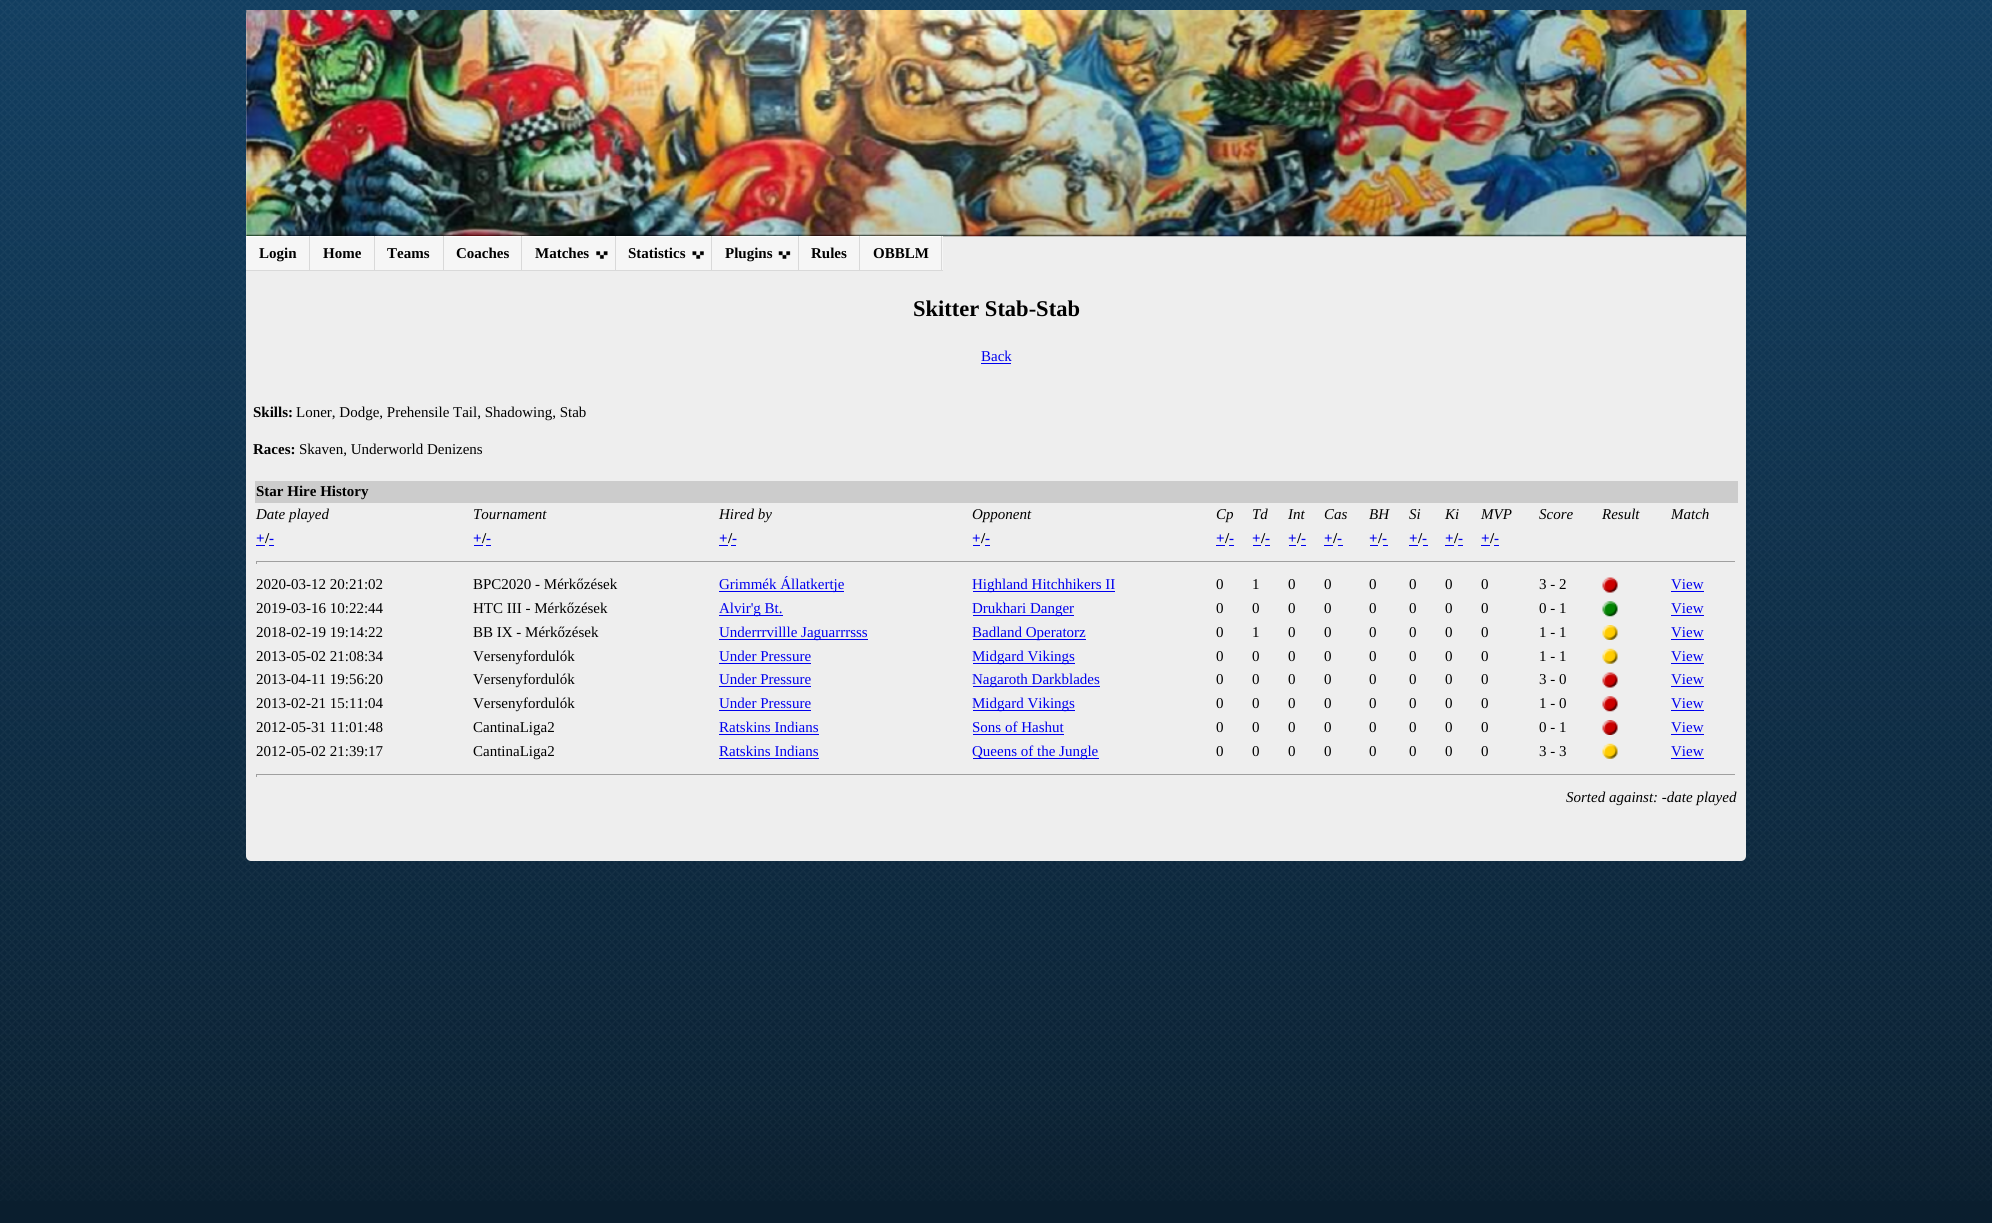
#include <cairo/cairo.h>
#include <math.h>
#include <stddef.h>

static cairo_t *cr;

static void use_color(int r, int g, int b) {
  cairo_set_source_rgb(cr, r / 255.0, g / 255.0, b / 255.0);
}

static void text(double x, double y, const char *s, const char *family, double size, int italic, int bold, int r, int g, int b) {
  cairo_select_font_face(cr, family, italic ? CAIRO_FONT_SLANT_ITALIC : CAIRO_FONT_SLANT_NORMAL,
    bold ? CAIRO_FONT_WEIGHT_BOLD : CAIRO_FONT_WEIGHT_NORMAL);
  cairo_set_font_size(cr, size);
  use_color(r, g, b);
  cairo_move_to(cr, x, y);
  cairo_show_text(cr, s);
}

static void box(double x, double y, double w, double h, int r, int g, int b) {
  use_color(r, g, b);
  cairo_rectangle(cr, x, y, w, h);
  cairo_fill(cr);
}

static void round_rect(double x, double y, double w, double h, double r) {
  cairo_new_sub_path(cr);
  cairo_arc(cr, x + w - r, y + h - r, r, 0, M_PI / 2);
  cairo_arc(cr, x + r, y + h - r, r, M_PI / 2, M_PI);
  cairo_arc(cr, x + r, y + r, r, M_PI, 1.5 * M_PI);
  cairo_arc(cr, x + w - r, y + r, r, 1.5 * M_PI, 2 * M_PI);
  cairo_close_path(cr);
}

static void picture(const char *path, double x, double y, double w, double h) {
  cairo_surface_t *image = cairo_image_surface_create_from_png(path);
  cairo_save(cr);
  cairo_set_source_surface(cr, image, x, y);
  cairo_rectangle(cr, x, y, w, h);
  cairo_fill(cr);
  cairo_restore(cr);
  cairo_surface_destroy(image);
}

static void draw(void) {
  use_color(10, 30, 46);
  cairo_paint(cr);
  picture("img_01.png", 0, 0, 1992, 1201);
  use_color(238, 238, 238);
  round_rect(246, 10, 1500, 851, 5);
  cairo_fill(cr);
  picture("img_02.png", 246, 10, 1501, 227);
  box(246, 237, 63, 33, 246, 246, 246);
  box(246, 236, 697, 1, 255, 255, 255);
  box(309, 236, 1, 35, 217, 217, 217);
  box(246, 270, 64, 1, 217, 217, 217);
  box(310, 237, 64, 33, 246, 246, 246);
  box(374, 236, 1, 35, 217, 217, 217);
  box(310, 270, 65, 1, 217, 217, 217);
  box(375, 237, 68, 33, 246, 246, 246);
  box(443, 236, 1, 35, 217, 217, 217);
  box(375, 270, 69, 1, 217, 217, 217);
  box(444, 237, 171, 33, 246, 246, 246);
  box(521, 236, 1, 35, 217, 217, 217);
  box(444, 270, 79, 1, 217, 217, 217);
  picture("img_03.png", 596, 251, 12, 8);
  box(615, 236, 1, 35, 217, 217, 217);
  box(523, 270, 93, 1, 217, 217, 217);
  box(616, 237, 182, 33, 246, 246, 246);
  picture("img_04.png", 692, 251, 12, 8);
  box(711, 236, 1, 35, 217, 217, 217);
  box(616, 270, 97, 1, 217, 217, 217);
  picture("img_05.png", 778, 251, 13, 8);
  box(798, 236, 1, 35, 217, 217, 217);
  box(713, 270, 86, 1, 217, 217, 217);
  box(799, 237, 60, 33, 246, 246, 246);
  box(859, 236, 1, 35, 217, 217, 217);
  box(799, 270, 61, 1, 217, 217, 217);
  box(860, 237, 83, 33, 246, 246, 246);
  box(941, 236, 1, 35, 217, 217, 217);
  box(860, 270, 83, 1, 217, 217, 217);
  box(981, 363, 30, 1, 0, 0, 238);
  box(255, 481, 1483, 22, 204, 204, 204);
  box(256, 545, 9, 1, 0, 0, 238);
  box(269, 545, 5, 1, 0, 0, 238);
  box(474, 545, 9, 1, 0, 0, 238);
  box(486, 545, 5, 1, 0, 0, 238);
  box(719, 545, 9, 1, 0, 0, 238);
  box(731, 545, 5, 1, 0, 0, 238);
  box(973, 545, 7, 1, 0, 0, 238);
  box(985, 545, 5, 1, 0, 0, 238);
  box(1216, 545, 9, 1, 0, 0, 238);
  box(1229, 545, 5, 1, 0, 0, 238);
  box(1253, 545, 8, 1, 0, 0, 238);
  box(1265, 545, 5, 1, 0, 0, 238);
  box(1289, 545, 7, 1, 0, 0, 238);
  box(1301, 545, 5, 1, 0, 0, 238);
  box(1324, 545, 9, 1, 0, 0, 238);
  box(1338, 545, 5, 1, 0, 0, 238);
  box(1370, 545, 8, 1, 0, 0, 238);
  box(1383, 545, 5, 1, 0, 0, 238);
  box(1409, 545, 9, 1, 0, 0, 238);
  box(1423, 545, 5, 1, 0, 0, 238);
  box(1445, 545, 9, 1, 0, 0, 238);
  box(1458, 545, 5, 1, 0, 0, 238);
  box(1481, 545, 9, 1, 0, 0, 238);
  box(1494, 545, 5, 1, 0, 0, 238);
  box(256, 561, 1480, 1, 159, 159, 159);
  box(1735, 561, 1, 3, 238, 238, 238);
  box(256, 561, 1, 3, 159, 159, 159);
  box(719, 591, 125, 1, 0, 0, 238);
  box(973, 591, 142, 1, 0, 0, 238);
  picture("img_06.png", 1602, 577, 16, 16);
  box(1671, 591, 33, 1, 0, 0, 238);
  box(719, 615, 64, 1, 0, 0, 238);
  box(973, 615, 101, 1, 0, 0, 238);
  picture("img_07.png", 1602, 601, 16, 16);
  box(1671, 615, 33, 1, 0, 0, 238);
  box(719, 639, 149, 1, 0, 0, 238);
  box(973, 639, 113, 1, 0, 0, 238);
  picture("img_08.png", 1602, 625, 16, 15);
  box(1671, 639, 33, 1, 0, 0, 238);
  box(719, 663, 92, 1, 0, 0, 238);
  box(973, 663, 102, 1, 0, 0, 238);
  picture("img_09.png", 1602, 648, 16, 16);
  box(1671, 663, 33, 1, 0, 0, 238);
  box(719, 686, 92, 1, 0, 0, 238);
  box(973, 686, 127, 1, 0, 0, 238);
  picture("img_06.png", 1602, 672, 16, 16);
  box(1671, 686, 33, 1, 0, 0, 238);
  box(719, 710, 92, 1, 0, 0, 238);
  box(973, 710, 102, 1, 0, 0, 238);
  picture("img_10.png", 1602, 696, 16, 16);
  box(1671, 710, 33, 1, 0, 0, 238);
  box(719, 734, 100, 1, 0, 0, 238);
  box(973, 734, 91, 1, 0, 0, 238);
  picture("img_11.png", 1602, 720, 16, 15);
  box(1671, 734, 33, 1, 0, 0, 238);
  box(719, 758, 100, 1, 0, 0, 238);
  box(973, 758, 126, 1, 0, 0, 238);
  picture("img_09.png", 1602, 743, 16, 16);
  box(1671, 758, 33, 1, 0, 0, 238);
  box(256, 774, 1480, 1, 159, 159, 159);
  box(1735, 774, 1, 3, 238, 238, 238);
  box(256, 774, 1, 3, 159, 159, 159);
  text(259, 258, "Login", "Liberation Serif", 15, 0, 1, 0, 0, 0);
  text(323, 258, "Home", "Liberation Serif", 15, 0, 1, 0, 0, 0);
  text(387, 258, "Teams", "Liberation Serif", 15, 0, 1, 0, 0, 0);
  text(456, 258, "Coaches", "Liberation Serif", 15, 0, 1, 0, 0, 0);
  text(535, 258, "Matches", "Liberation Serif", 15, 0, 1, 0, 0, 0);
  text(628, 258, "Statistics", "Liberation Serif", 15, 0, 1, 0, 0, 0);
  text(725, 258, "Plugins", "Liberation Serif", 15, 0, 1, 0, 0, 0);
  text(811, 258, "Rules", "Liberation Serif", 15, 0, 1, 0, 0, 0);
  text(873, 258, "OBBLM", "Liberation Serif", 15, 0, 1, 0, 0, 0);
  text(913, 316, "Skitter Stab-Stab", "Liberation Serif", 22.5, 0, 1, 0, 0, 0);
  text(981, 361, "Back", "Liberation Serif", 15, 0, 0, 0, 0, 238);
  text(253, 417, "Skills:", "Liberation Serif", 15, 0, 1, 0, 0, 0);
  text(296, 417, "Loner, Dodge, Prehensile Tail, Shadowing, Stab", "Liberation Serif", 15, 0, 0, 0, 0, 0);
  text(253, 454, "Races:", "Liberation Serif", 15, 0, 1, 0, 0, 0);
  text(299, 454, "Skaven, Underworld Denizens", "Liberation Serif", 15, 0, 0, 0, 0, 0);
  text(256, 496, "Star Hire History", "Liberation Serif", 15, 0, 1, 0, 0, 0);
  text(256, 519, "Date played", "Liberation Serif", 15, 1, 0, 0, 0, 0);
  text(473, 519, "Tournament", "Liberation Serif", 15, 1, 0, 0, 0, 0);
  text(719, 519, "Hired by", "Liberation Serif", 15, 1, 0, 0, 0, 0);
  text(972, 519, "Opponent", "Liberation Serif", 15, 1, 0, 0, 0, 0);
  text(1216, 519, "Cp", "Liberation Serif", 15, 1, 0, 0, 0, 0);
  text(1252, 519, "Td", "Liberation Serif", 15, 1, 0, 0, 0, 0);
  text(1288, 519, "Int", "Liberation Serif", 15, 1, 0, 0, 0, 0);
  text(1324, 519, "Cas", "Liberation Serif", 15, 1, 0, 0, 0, 0);
  text(1369, 519, "BH", "Liberation Serif", 15, 1, 0, 0, 0, 0);
  text(1409, 519, "Si", "Liberation Serif", 15, 1, 0, 0, 0, 0);
  text(1445, 519, "Ki", "Liberation Serif", 15, 1, 0, 0, 0, 0);
  text(1481, 519, "MVP", "Liberation Serif", 15, 1, 0, 0, 0, 0);
  text(1539, 519, "Score", "Liberation Serif", 15, 1, 0, 0, 0, 0);
  text(1602, 519, "Result", "Liberation Serif", 15, 1, 0, 0, 0, 0);
  text(1671, 519, "Match", "Liberation Serif", 15, 1, 0, 0, 0, 0);
  text(256, 543, "+", "Liberation Serif", 15, 0, 1, 0, 0, 238);
  text(265, 543, "/", "Liberation Serif", 15, 0, 1, 0, 0, 0);
  text(269, 543, "-", "Liberation Serif", 15, 0, 1, 0, 0, 238);
  text(473, 543, "+", "Liberation Serif", 15, 0, 1, 0, 0, 238);
  text(482, 543, "/", "Liberation Serif", 15, 0, 1, 0, 0, 0);
  text(486, 543, "-", "Liberation Serif", 15, 0, 1, 0, 0, 238);
  text(719, 543, "+", "Liberation Serif", 15, 0, 1, 0, 0, 238);
  text(728, 543, "/", "Liberation Serif", 15, 0, 1, 0, 0, 0);
  text(732, 543, "-", "Liberation Serif", 15, 0, 1, 0, 0, 238);
  text(972, 543, "+", "Liberation Serif", 15, 0, 1, 0, 0, 238);
  text(981, 543, "/", "Liberation Serif", 15, 0, 1, 0, 0, 0);
  text(985, 543, "-", "Liberation Serif", 15, 0, 1, 0, 0, 238);
  text(1216, 543, "+", "Liberation Serif", 15, 0, 1, 0, 0, 238);
  text(1225, 543, "/", "Liberation Serif", 15, 0, 1, 0, 0, 0);
  text(1229, 543, "-", "Liberation Serif", 15, 0, 1, 0, 0, 238);
  text(1252, 543, "+", "Liberation Serif", 15, 0, 1, 0, 0, 238);
  text(1261, 543, "/", "Liberation Serif", 15, 0, 1, 0, 0, 0);
  text(1265, 543, "-", "Liberation Serif", 15, 0, 1, 0, 0, 238);
  text(1288, 543, "+", "Liberation Serif", 15, 0, 1, 0, 0, 238);
  text(1297, 543, "/", "Liberation Serif", 15, 0, 1, 0, 0, 0);
  text(1301, 543, "-", "Liberation Serif", 15, 0, 1, 0, 0, 238);
  text(1324, 543, "+", "Liberation Serif", 15, 0, 1, 0, 0, 238);
  text(1333, 543, "/", "Liberation Serif", 15, 0, 1, 0, 0, 0);
  text(1337, 543, "-", "Liberation Serif", 15, 0, 1, 0, 0, 238);
  text(1369, 543, "+", "Liberation Serif", 15, 0, 1, 0, 0, 238);
  text(1378, 543, "/", "Liberation Serif", 15, 0, 1, 0, 0, 0);
  text(1382, 543, "-", "Liberation Serif", 15, 0, 1, 0, 0, 238);
  text(1409, 543, "+", "Liberation Serif", 15, 0, 1, 0, 0, 238);
  text(1418, 543, "/", "Liberation Serif", 15, 0, 1, 0, 0, 0);
  text(1422, 543, "-", "Liberation Serif", 15, 0, 1, 0, 0, 238);
  text(1445, 543, "+", "Liberation Serif", 15, 0, 1, 0, 0, 238);
  text(1454, 543, "/", "Liberation Serif", 15, 0, 1, 0, 0, 0);
  text(1458, 543, "-", "Liberation Serif", 15, 0, 1, 0, 0, 238);
  text(1481, 543, "+", "Liberation Serif", 15, 0, 1, 0, 0, 238);
  text(1490, 543, "/", "Liberation Serif", 15, 0, 1, 0, 0, 0);
  text(1494, 543, "-", "Liberation Serif", 15, 0, 1, 0, 0, 238);
  text(256, 589, "2020-03-12 20:21:02", "Liberation Serif", 15, 0, 0, 0, 0, 0);
  text(473, 589, "BPC2020 - Mérkőzések", "Liberation Serif", 15, 0, 0, 0, 0, 0);
  text(719, 589, "Grimmék Állatkertje", "Liberation Serif", 15, 0, 0, 0, 0, 238);
  text(972, 589, "Highland Hitchhikers II", "Liberation Serif", 15, 0, 0, 0, 0, 238);
  text(1216, 589, "0", "Liberation Serif", 15, 0, 0, 0, 0, 0);
  text(1252, 589, "1", "Liberation Serif", 15, 0, 0, 0, 0, 0);
  text(1288, 589, "0", "Liberation Serif", 15, 0, 0, 0, 0, 0);
  text(1324, 589, "0", "Liberation Serif", 15, 0, 0, 0, 0, 0);
  text(1369, 589, "0", "Liberation Serif", 15, 0, 0, 0, 0, 0);
  text(1409, 589, "0", "Liberation Serif", 15, 0, 0, 0, 0, 0);
  text(1445, 589, "0", "Liberation Serif", 15, 0, 0, 0, 0, 0);
  text(1481, 589, "0", "Liberation Serif", 15, 0, 0, 0, 0, 0);
  text(1539, 589, "3 - 2", "Liberation Serif", 15, 0, 0, 0, 0, 0);
  text(1671, 589, "View", "Liberation Serif", 15, 0, 0, 0, 0, 238);
  text(256, 613, "2019-03-16 10:22:44", "Liberation Serif", 15, 0, 0, 0, 0, 0);
  text(473, 613, "HTC III - Mérkőzések", "Liberation Serif", 15, 0, 0, 0, 0, 0);
  text(719, 613, "Alvir'g Bt.", "Liberation Serif", 15, 0, 0, 0, 0, 238);
  text(972, 613, "Drukhari Danger", "Liberation Serif", 15, 0, 0, 0, 0, 238);
  text(1216, 613, "0", "Liberation Serif", 15, 0, 0, 0, 0, 0);
  text(1252, 613, "0", "Liberation Serif", 15, 0, 0, 0, 0, 0);
  text(1288, 613, "0", "Liberation Serif", 15, 0, 0, 0, 0, 0);
  text(1324, 613, "0", "Liberation Serif", 15, 0, 0, 0, 0, 0);
  text(1369, 613, "0", "Liberation Serif", 15, 0, 0, 0, 0, 0);
  text(1409, 613, "0", "Liberation Serif", 15, 0, 0, 0, 0, 0);
  text(1445, 613, "0", "Liberation Serif", 15, 0, 0, 0, 0, 0);
  text(1481, 613, "0", "Liberation Serif", 15, 0, 0, 0, 0, 0);
  text(1539, 613, "0 - 1", "Liberation Serif", 15, 0, 0, 0, 0, 0);
  text(1671, 613, "View", "Liberation Serif", 15, 0, 0, 0, 0, 238);
  text(256, 637, "2018-02-19 19:14:22", "Liberation Serif", 15, 0, 0, 0, 0, 0);
  text(473, 637, "BB IX - Mérkőzések", "Liberation Serif", 15, 0, 0, 0, 0, 0);
  text(719, 637, "Underrrvillle Jaguarrrsss", "Liberation Serif", 15, 0, 0, 0, 0, 238);
  text(972, 637, "Badland Operatorz", "Liberation Serif", 15, 0, 0, 0, 0, 238);
  text(1216, 637, "0", "Liberation Serif", 15, 0, 0, 0, 0, 0);
  text(1252, 637, "1", "Liberation Serif", 15, 0, 0, 0, 0, 0);
  text(1288, 637, "0", "Liberation Serif", 15, 0, 0, 0, 0, 0);
  text(1324, 637, "0", "Liberation Serif", 15, 0, 0, 0, 0, 0);
  text(1369, 637, "0", "Liberation Serif", 15, 0, 0, 0, 0, 0);
  text(1409, 637, "0", "Liberation Serif", 15, 0, 0, 0, 0, 0);
  text(1445, 637, "0", "Liberation Serif", 15, 0, 0, 0, 0, 0);
  text(1481, 637, "0", "Liberation Serif", 15, 0, 0, 0, 0, 0);
  text(1539, 637, "1 - 1", "Liberation Serif", 15, 0, 0, 0, 0, 0);
  text(1671, 637, "View", "Liberation Serif", 15, 0, 0, 0, 0, 238);
  text(256, 661, "2013-05-02 21:08:34", "Liberation Serif", 15, 0, 0, 0, 0, 0);
  text(473, 661, "Versenyfordulók", "Liberation Serif", 15, 0, 0, 0, 0, 0);
  text(719, 661, "Under Pressure", "Liberation Serif", 15, 0, 0, 0, 0, 238);
  text(972, 661, "Midgard Vikings", "Liberation Serif", 15, 0, 0, 0, 0, 238);
  text(1216, 661, "0", "Liberation Serif", 15, 0, 0, 0, 0, 0);
  text(1252, 661, "0", "Liberation Serif", 15, 0, 0, 0, 0, 0);
  text(1288, 661, "0", "Liberation Serif", 15, 0, 0, 0, 0, 0);
  text(1324, 661, "0", "Liberation Serif", 15, 0, 0, 0, 0, 0);
  text(1369, 661, "0", "Liberation Serif", 15, 0, 0, 0, 0, 0);
  text(1409, 661, "0", "Liberation Serif", 15, 0, 0, 0, 0, 0);
  text(1445, 661, "0", "Liberation Serif", 15, 0, 0, 0, 0, 0);
  text(1481, 661, "0", "Liberation Serif", 15, 0, 0, 0, 0, 0);
  text(1539, 661, "1 - 1", "Liberation Serif", 15, 0, 0, 0, 0, 0);
  text(1671, 661, "View", "Liberation Serif", 15, 0, 0, 0, 0, 238);
  text(256, 684, "2013-04-11 19:56:20", "Liberation Serif", 15, 0, 0, 0, 0, 0);
  text(473, 684, "Versenyfordulók", "Liberation Serif", 15, 0, 0, 0, 0, 0);
  text(719, 684, "Under Pressure", "Liberation Serif", 15, 0, 0, 0, 0, 238);
  text(972, 684, "Nagaroth Darkblades", "Liberation Serif", 15, 0, 0, 0, 0, 238);
  text(1216, 684, "0", "Liberation Serif", 15, 0, 0, 0, 0, 0);
  text(1252, 684, "0", "Liberation Serif", 15, 0, 0, 0, 0, 0);
  text(1288, 684, "0", "Liberation Serif", 15, 0, 0, 0, 0, 0);
  text(1324, 684, "0", "Liberation Serif", 15, 0, 0, 0, 0, 0);
  text(1369, 684, "0", "Liberation Serif", 15, 0, 0, 0, 0, 0);
  text(1409, 684, "0", "Liberation Serif", 15, 0, 0, 0, 0, 0);
  text(1445, 684, "0", "Liberation Serif", 15, 0, 0, 0, 0, 0);
  text(1481, 684, "0", "Liberation Serif", 15, 0, 0, 0, 0, 0);
  text(1539, 684, "3 - 0", "Liberation Serif", 15, 0, 0, 0, 0, 0);
  text(1671, 684, "View", "Liberation Serif", 15, 0, 0, 0, 0, 238);
  text(256, 708, "2013-02-21 15:11:04", "Liberation Serif", 15, 0, 0, 0, 0, 0);
  text(473, 708, "Versenyfordulók", "Liberation Serif", 15, 0, 0, 0, 0, 0);
  text(719, 708, "Under Pressure", "Liberation Serif", 15, 0, 0, 0, 0, 238);
  text(972, 708, "Midgard Vikings", "Liberation Serif", 15, 0, 0, 0, 0, 238);
  text(1216, 708, "0", "Liberation Serif", 15, 0, 0, 0, 0, 0);
  text(1252, 708, "0", "Liberation Serif", 15, 0, 0, 0, 0, 0);
  text(1288, 708, "0", "Liberation Serif", 15, 0, 0, 0, 0, 0);
  text(1324, 708, "0", "Liberation Serif", 15, 0, 0, 0, 0, 0);
  text(1369, 708, "0", "Liberation Serif", 15, 0, 0, 0, 0, 0);
  text(1409, 708, "0", "Liberation Serif", 15, 0, 0, 0, 0, 0);
  text(1445, 708, "0", "Liberation Serif", 15, 0, 0, 0, 0, 0);
  text(1481, 708, "0", "Liberation Serif", 15, 0, 0, 0, 0, 0);
  text(1539, 708, "1 - 0", "Liberation Serif", 15, 0, 0, 0, 0, 0);
  text(1671, 708, "View", "Liberation Serif", 15, 0, 0, 0, 0, 238);
  text(256, 732, "2012-05-31 11:01:48", "Liberation Serif", 15, 0, 0, 0, 0, 0);
  text(473, 732, "CantinaLiga2", "Liberation Serif", 15, 0, 0, 0, 0, 0);
  text(719, 732, "Ratskins Indians", "Liberation Serif", 15, 0, 0, 0, 0, 238);
  text(972, 732, "Sons of Hashut", "Liberation Serif", 15, 0, 0, 0, 0, 238);
  text(1216, 732, "0", "Liberation Serif", 15, 0, 0, 0, 0, 0);
  text(1252, 732, "0", "Liberation Serif", 15, 0, 0, 0, 0, 0);
  text(1288, 732, "0", "Liberation Serif", 15, 0, 0, 0, 0, 0);
  text(1324, 732, "0", "Liberation Serif", 15, 0, 0, 0, 0, 0);
  text(1369, 732, "0", "Liberation Serif", 15, 0, 0, 0, 0, 0);
  text(1409, 732, "0", "Liberation Serif", 15, 0, 0, 0, 0, 0);
  text(1445, 732, "0", "Liberation Serif", 15, 0, 0, 0, 0, 0);
  text(1481, 732, "0", "Liberation Serif", 15, 0, 0, 0, 0, 0);
  text(1539, 732, "0 - 1", "Liberation Serif", 15, 0, 0, 0, 0, 0);
  text(1671, 732, "View", "Liberation Serif", 15, 0, 0, 0, 0, 238);
  text(256, 756, "2012-05-02 21:39:17", "Liberation Serif", 15, 0, 0, 0, 0, 0);
  text(473, 756, "CantinaLiga2", "Liberation Serif", 15, 0, 0, 0, 0, 0);
  text(719, 756, "Ratskins Indians", "Liberation Serif", 15, 0, 0, 0, 0, 238);
  text(972, 756, "Queens of the Jungle", "Liberation Serif", 15, 0, 0, 0, 0, 238);
  text(1216, 756, "0", "Liberation Serif", 15, 0, 0, 0, 0, 0);
  text(1252, 756, "0", "Liberation Serif", 15, 0, 0, 0, 0, 0);
  text(1288, 756, "0", "Liberation Serif", 15, 0, 0, 0, 0, 0);
  text(1324, 756, "0", "Liberation Serif", 15, 0, 0, 0, 0, 0);
  text(1369, 756, "0", "Liberation Serif", 15, 0, 0, 0, 0, 0);
  text(1409, 756, "0", "Liberation Serif", 15, 0, 0, 0, 0, 0);
  text(1445, 756, "0", "Liberation Serif", 15, 0, 0, 0, 0, 0);
  text(1481, 756, "0", "Liberation Serif", 15, 0, 0, 0, 0, 0);
  text(1539, 756, "3 - 3", "Liberation Serif", 15, 0, 0, 0, 0, 0);
  text(1671, 756, "View", "Liberation Serif", 15, 0, 0, 0, 0, 238);
  text(1566, 802, "Sorted against: -date played", "Liberation Serif", 15, 1, 0, 0, 0, 0);
}

int main(void) {
  cairo_surface_t *surface = cairo_image_surface_create(CAIRO_FORMAT_RGB24, 1992, 1223);
  cr = cairo_create(surface);
  cairo_font_options_t *options = cairo_font_options_create();
  cairo_font_options_set_hint_metrics(options, CAIRO_HINT_METRICS_OFF);
  cairo_font_options_set_hint_style(options, CAIRO_HINT_STYLE_NONE);
  cairo_set_font_options(cr, options);
  cairo_set_miter_limit(cr, 4);
  draw();
  cairo_surface_write_to_png(surface, "out.png");
  cairo_font_options_destroy(options);
  cairo_destroy(cr);
  cairo_surface_destroy(surface);
  return 0;
}
